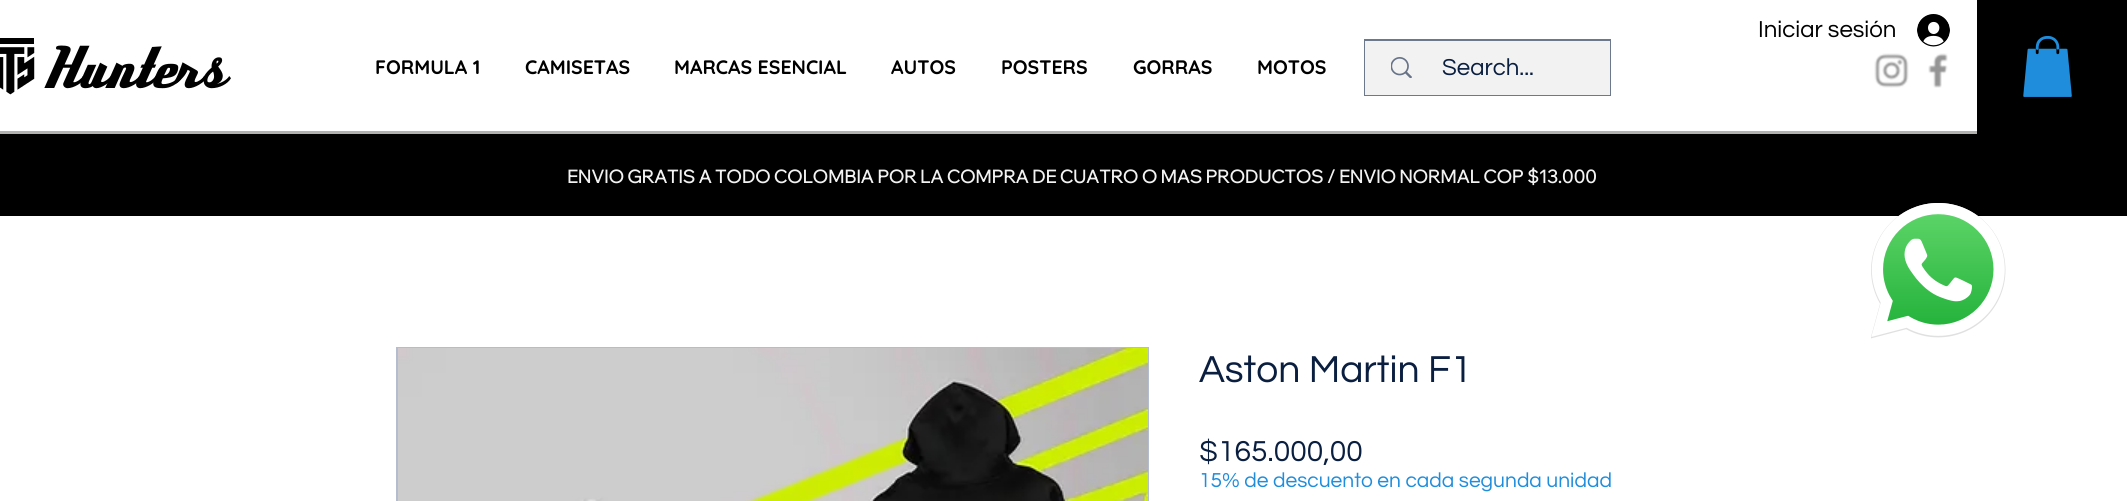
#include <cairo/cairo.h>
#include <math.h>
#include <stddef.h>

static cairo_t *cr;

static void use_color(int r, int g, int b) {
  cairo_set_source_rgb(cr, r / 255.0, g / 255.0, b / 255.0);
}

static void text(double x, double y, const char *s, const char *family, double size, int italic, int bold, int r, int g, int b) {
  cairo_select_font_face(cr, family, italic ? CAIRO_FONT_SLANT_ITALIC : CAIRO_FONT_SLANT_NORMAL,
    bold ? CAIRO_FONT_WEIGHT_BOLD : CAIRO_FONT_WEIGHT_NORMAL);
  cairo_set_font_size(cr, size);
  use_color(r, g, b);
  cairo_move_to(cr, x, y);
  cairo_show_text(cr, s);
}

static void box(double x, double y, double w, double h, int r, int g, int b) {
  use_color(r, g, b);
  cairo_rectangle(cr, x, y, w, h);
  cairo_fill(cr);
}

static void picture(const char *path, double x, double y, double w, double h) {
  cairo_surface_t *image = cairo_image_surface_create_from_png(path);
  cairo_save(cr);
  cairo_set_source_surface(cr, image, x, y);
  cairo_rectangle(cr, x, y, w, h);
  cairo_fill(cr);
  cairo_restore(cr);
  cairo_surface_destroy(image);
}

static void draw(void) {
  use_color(255, 255, 255);
  cairo_paint(cr);
  picture("img_01.png", 1917, 14, 33, 33);
  box(1977, 0, 150, 134, 0, 0, 0);
  picture("img_02.png", 2023, 36, 49, 61);
  picture("img_03.png", 1874, 53, 35, 35);
  picture("img_04.png", 1928, 53, 20, 35);
  picture("img_05.png", 0, 38, 231, 57);
  cairo_rectangle(cr, 1365, 40, 245, 55);
  use_color(108, 120, 140);
  cairo_stroke(cr);
  box(1365, 41, 245, 54, 242, 242, 242);
  picture("img_06.png", 1391, 57, 21, 21);
  box(0, 131, 1977, 3, 178, 178, 177);
  box(0, 134, 2127, 82, 0, 0, 0);
  picture("img_07.png", 1871, 203, 135, 136);
  cairo_rectangle(cr, 397, 348, 751, 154);
  use_color(180, 189, 205);
  cairo_stroke(cr);
  picture("img_08.png", 398, 348, 750, 153);
  text(1758, 37, "Iniciar sesión", "Questrial", 24, 0, 0, 0, 0, 0);
  text(375, 74, "FORMULA 1", "Quicksand", 19.5, 0, 1, 0, 0, 0);
  text(525, 74, "CAMISETAS", "Quicksand", 19.5, 0, 1, 0, 0, 0);
  text(674, 74, "MARCAS ESENCIAL", "Quicksand", 19.5, 0, 1, 0, 0, 0);
  text(891, 74, "AUTOS", "Quicksand", 19.5, 0, 1, 0, 0, 0);
  text(1001, 74, "POSTERS", "Quicksand", 19.5, 0, 1, 0, 0, 0);
  text(1133, 74, "GORRAS", "Quicksand", 19.5, 0, 1, 0, 0, 0);
  text(1257, 74, "MOTOS", "Quicksand", 19.5, 0, 1, 0, 0, 0);
  text(1442, 75, "Search...", "Questrial", 24, 0, 0, 10, 30, 64);
  text(567, 183, "ENVIO GRATIS A TODO COLOMBIA POR LA COMPRA DE CUATRO O MAS PRODUCTOS / ENVIO NORMAL COP $13.000", "Wix Madefor Display", 18, 0, 1, 242, 242, 242);
  text(1199, 382, "Aston Martin F1", "Questrial", 39, 0, 0, 10, 30, 64);
  text(1199, 461, "$165.000,00", "Questrial", 30, 0, 0, 10, 30, 64);
  text(1199, 487, "15% de descuento en cada segunda unidad", "Questrial", 21, 0, 0, 31, 141, 219);
}

int main(void) {
  cairo_surface_t *surface = cairo_image_surface_create(CAIRO_FORMAT_RGB24, 2127, 501);
  cr = cairo_create(surface);
  cairo_font_options_t *options = cairo_font_options_create();
  cairo_font_options_set_hint_metrics(options, CAIRO_HINT_METRICS_OFF);
  cairo_font_options_set_hint_style(options, CAIRO_HINT_STYLE_NONE);
  cairo_set_font_options(cr, options);
  cairo_set_miter_limit(cr, 4);
  draw();
  cairo_surface_write_to_png(surface, "out.png");
  cairo_font_options_destroy(options);
  cairo_destroy(cr);
  cairo_surface_destroy(surface);
  return 0;
}
